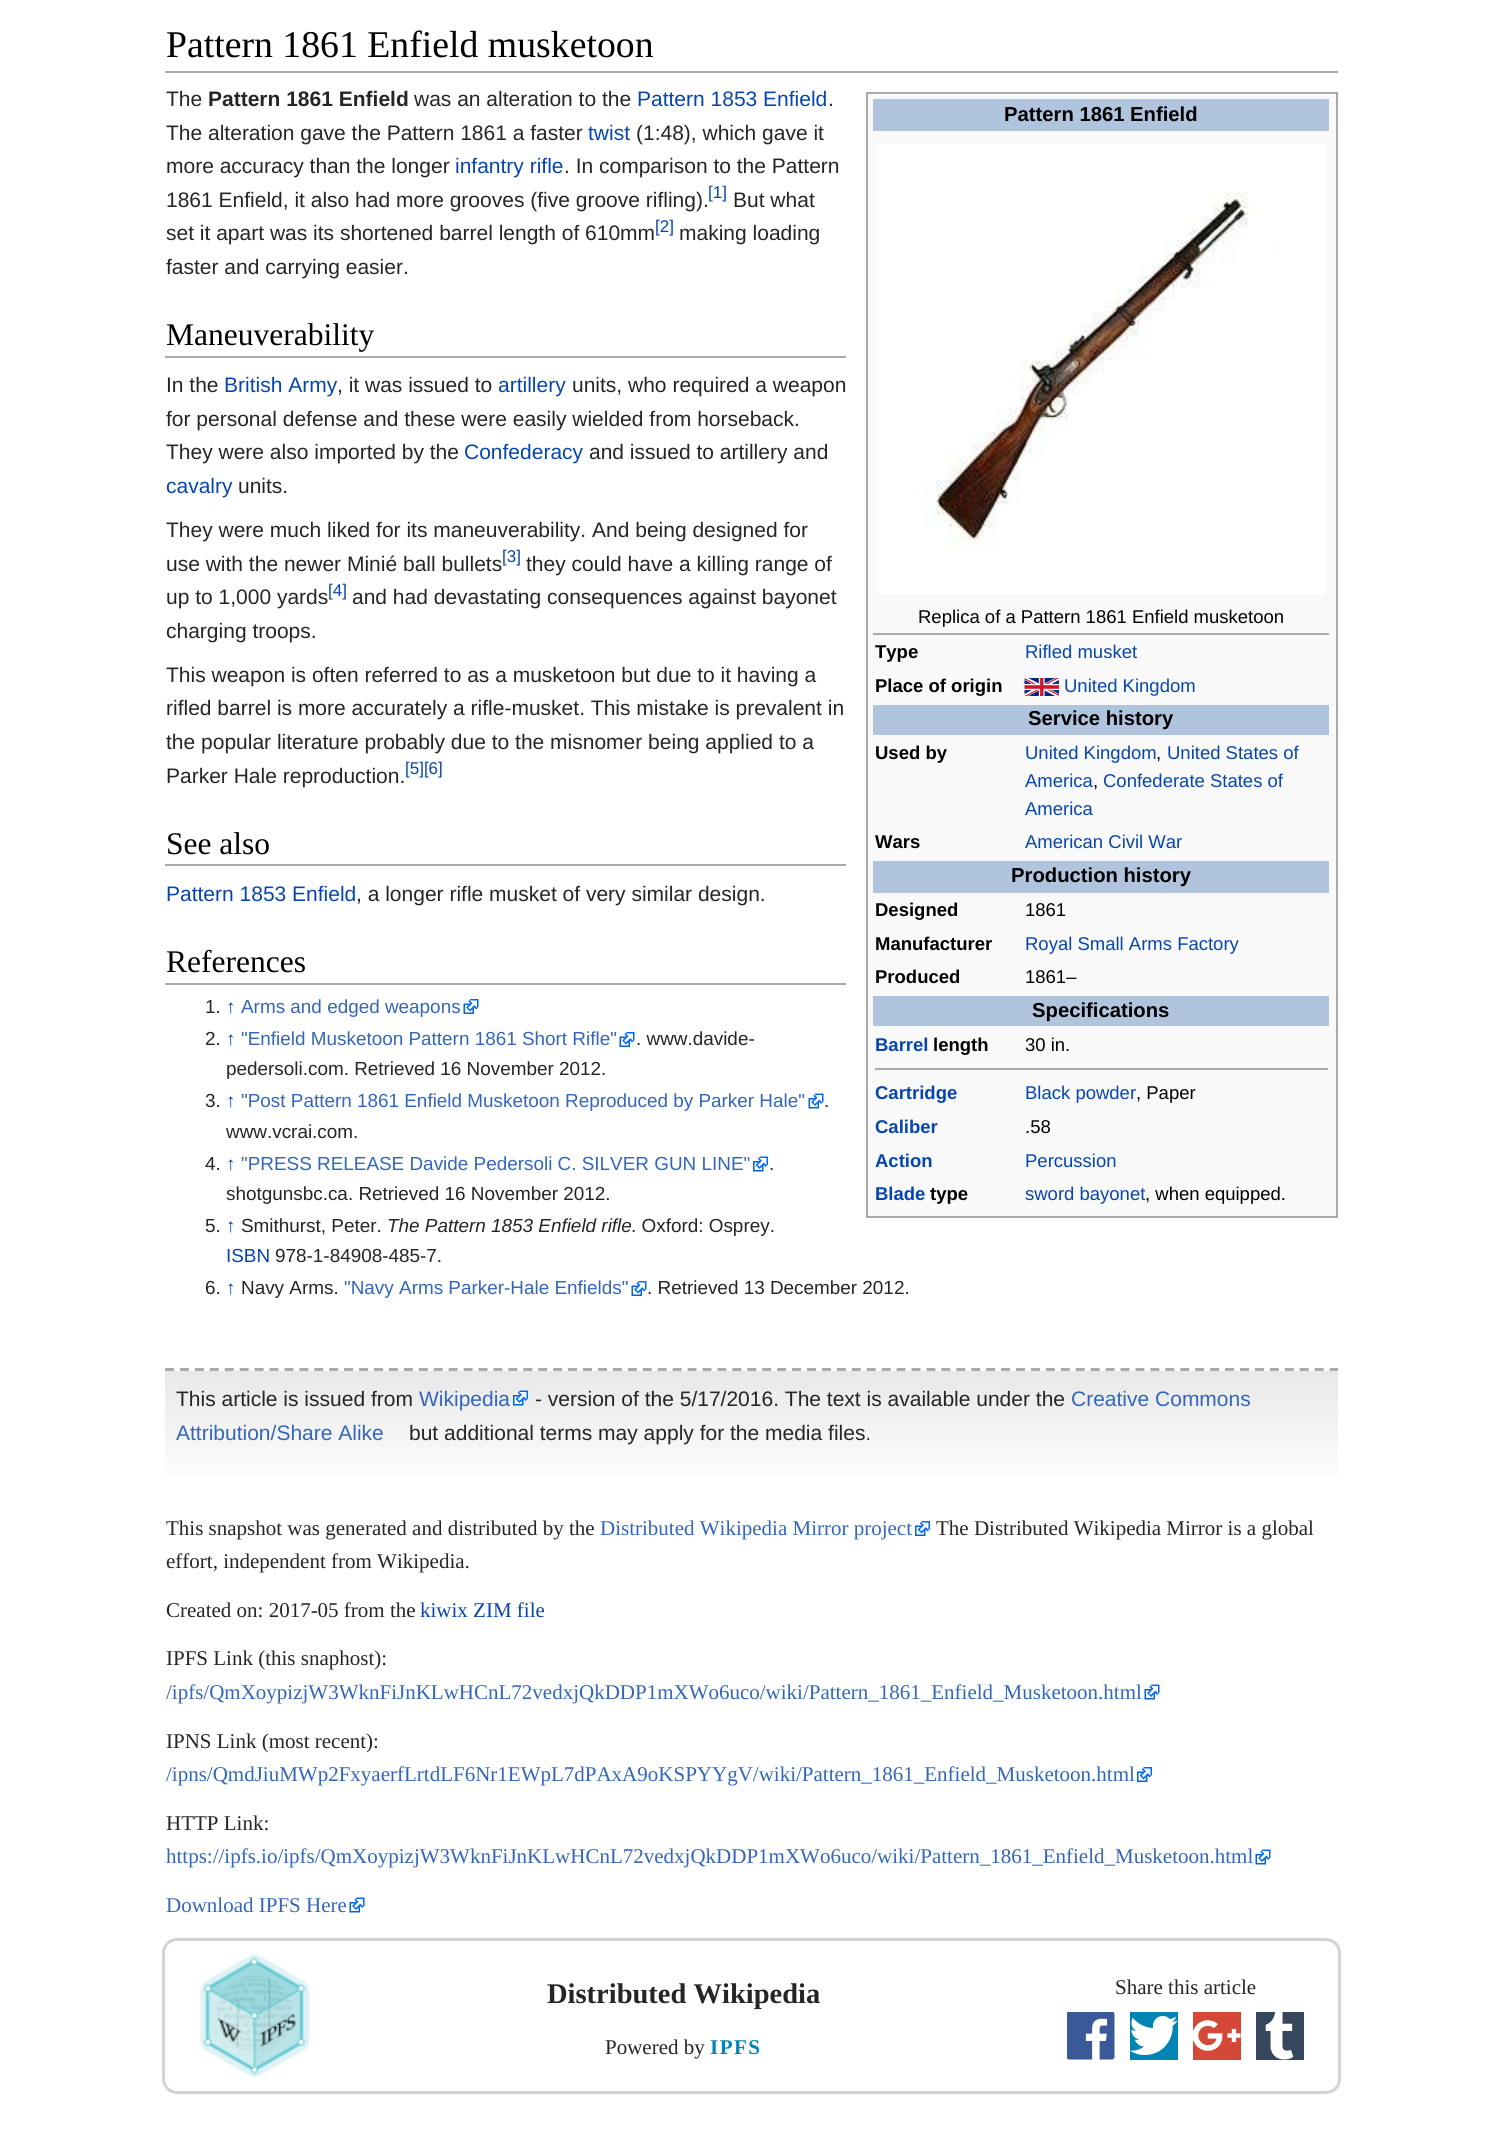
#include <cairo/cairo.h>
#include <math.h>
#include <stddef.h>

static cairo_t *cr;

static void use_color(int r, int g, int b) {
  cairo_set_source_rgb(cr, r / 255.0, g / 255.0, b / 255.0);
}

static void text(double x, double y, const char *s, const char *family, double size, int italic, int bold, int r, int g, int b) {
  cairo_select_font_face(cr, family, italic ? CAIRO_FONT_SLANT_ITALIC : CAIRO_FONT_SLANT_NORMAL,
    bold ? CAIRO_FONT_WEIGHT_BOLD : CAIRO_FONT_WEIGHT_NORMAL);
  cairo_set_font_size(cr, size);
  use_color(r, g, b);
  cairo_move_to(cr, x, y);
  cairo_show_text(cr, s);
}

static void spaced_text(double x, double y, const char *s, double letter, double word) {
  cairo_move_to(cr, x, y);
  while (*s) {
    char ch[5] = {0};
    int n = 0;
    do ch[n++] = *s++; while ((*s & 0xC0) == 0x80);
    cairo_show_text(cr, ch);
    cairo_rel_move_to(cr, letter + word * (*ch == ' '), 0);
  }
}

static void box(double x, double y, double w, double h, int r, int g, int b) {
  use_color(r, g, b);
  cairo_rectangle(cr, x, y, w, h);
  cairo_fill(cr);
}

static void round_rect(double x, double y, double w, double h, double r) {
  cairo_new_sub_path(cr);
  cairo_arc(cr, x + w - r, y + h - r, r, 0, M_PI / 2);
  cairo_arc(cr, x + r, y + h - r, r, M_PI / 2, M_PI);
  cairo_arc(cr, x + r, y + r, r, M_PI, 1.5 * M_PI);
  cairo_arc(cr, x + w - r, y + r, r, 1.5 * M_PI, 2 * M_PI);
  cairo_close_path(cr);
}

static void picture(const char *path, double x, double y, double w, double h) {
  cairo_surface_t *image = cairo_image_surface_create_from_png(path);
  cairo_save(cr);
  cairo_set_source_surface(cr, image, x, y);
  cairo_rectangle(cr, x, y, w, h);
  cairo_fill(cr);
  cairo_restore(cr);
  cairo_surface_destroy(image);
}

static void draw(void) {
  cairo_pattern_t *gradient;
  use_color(255, 255, 255);
  cairo_paint(cr);
  box(165, 71, 1173, 2, 170, 170, 170);
  use_color(249, 249, 249);
  cairo_rectangle(cr, 867, 93, 470, 1124);
  cairo_fill_preserve(cr);
  use_color(170, 170, 170);
  cairo_stroke(cr);
  box(873, 99, 456, 32, 176, 196, 222);
  box(873, 633, 456, 2, 170, 170, 170);
  picture("img_01.png", 876, 144, 450, 450);
  picture("img_02.png", 1024, 678, 35, 18);
  box(873, 705, 456, 30, 176, 196, 222);
  box(873, 861, 456, 32, 176, 196, 222);
  box(873, 996, 456, 30, 176, 196, 222);
  box(875, 1068, 453, 2, 170, 170, 170);
  box(165, 356, 681, 2, 170, 170, 170);
  box(165, 864, 681, 2, 170, 170, 170);
  box(165, 983, 681, 2, 170, 170, 170);
  picture("img_03.png", 463, 999, 16, 15);
  picture("img_03.png", 619, 1032, 16, 15);
  picture("img_04.png", 808, 1093, 16, 16);
  picture("img_05.png", 753, 1156, 15, 16);
  picture("img_03.png", 631, 1281, 16, 15);
  gradient = cairo_pattern_create_linear(752, 1371, 752, 1491);
  cairo_pattern_add_color_stop_rgba(gradient, 0, 0.91, 0.91, 0.91, 1);
  cairo_pattern_add_color_stop_rgba(gradient, 1, 1, 1, 1, 1);
  cairo_set_source(cr, gradient);
  cairo_pattern_destroy(gradient);
  cairo_rectangle(cr, 165, 1371, 1173, 107);
  cairo_fill(cr);
  cairo_new_path(cr);
  cairo_move_to(cr, 165, 1369.5);
  cairo_line_to(cr, 1338, 1369.5);
  use_color(170, 170, 170);
  cairo_set_line_width(cr, 3);
  cairo_set_dash(cr, (double[]){9, 5.93}, 2, 0);
  cairo_stroke(cr);
  picture("img_06.png", 513, 1390, 15, 16);
  picture("img_07.png", 915, 1521, 15, 15);
  picture("img_04.png", 1144, 1684, 16, 16);
  picture("img_07.png", 1137, 1767, 15, 15);
  picture("img_04.png", 1255, 1849, 16, 16);
  picture("img_04.png", 349, 1897, 16, 16);
  round_rect(163.5, 1939.5, 1176, 153, 13.5);
  use_color(211, 211, 211);
  cairo_set_dash(cr, NULL, 0, 0);
  cairo_stroke(cr);
  picture("img_08.png", 199, 1954, 111, 124);
  picture("img_09.png", 1067, 2012, 48, 48);
  box(1130, 2012, 48, 48, 0, 132, 180);
  picture("img_10.png", 1130, 2016, 48, 39);
  box(1193, 2012, 48, 48, 211, 72, 54);
  picture("img_11.png", 1193, 2020, 48, 31);
  box(1256, 2012, 48, 48, 54, 70, 93);
  picture("img_12.png", 1265, 2012, 29, 48);
  text(166, 57, "Pattern 1861 Enfield musketoon", "Liberation Serif", 37.75, 0, 0, 0, 0, 0);
  text(166, 106, "The", "Liberation Sans", 21, 0, 0, 37, 37, 37);
  text(208, 106, "Pattern 1861 Enfield", "Liberation Sans", 21, 0, 1, 37, 37, 37);
  text(414, 106, "was an alteration to the", "Liberation Sans", 21, 0, 0, 37, 37, 37);
  text(637, 106, "Pattern 1853 Enfield", "Liberation Sans", 21, 0, 0, 6, 69, 173);
  text(828, 106, ".", "Liberation Sans", 21, 0, 0, 37, 37, 37);
  text(166, 140, "The alteration gave the Pattern 1861 a faster", "Liberation Sans", 21, 0, 0, 37, 37, 37);
  text(588, 140, "twist", "Liberation Sans", 21, 0, 0, 6, 69, 173);
  text(636, 140, "(1:48), which gave it", "Liberation Sans", 21, 0, 0, 37, 37, 37);
  text(166, 173, "more accuracy than the longer", "Liberation Sans", 21, 0, 0, 37, 37, 37);
  text(455, 173, "infantry rifle", "Liberation Sans", 21, 0, 0, 6, 69, 173);
  text(564, 173, ". In comparison to the Pattern", "Liberation Sans", 21, 0, 0, 37, 37, 37);
  text(166, 207, "1861 Enfield, it also had more grooves (five groove rifling).", "Liberation Sans", 21, 0, 0, 37, 37, 37);
  text(708, 198, "[1]", "Liberation Sans", 17, 0, 0, 6, 69, 173);
  text(733, 207, "But what", "Liberation Sans", 21, 0, 0, 37, 37, 37);
  text(166, 240, "set it apart was its shortened barrel length of 610mm", "Liberation Sans", 21, 0, 0, 37, 37, 37);
  text(655, 232, "[2]", "Liberation Sans", 17, 0, 0, 6, 69, 173);
  text(679, 240, "making loading", "Liberation Sans", 21, 0, 0, 37, 37, 37);
  text(166, 274, "faster and carrying easier.", "Liberation Sans", 21, 0, 0, 37, 37, 37);
  text(1004, 121, "Pattern 1861 Enfield", "Liberation Sans", 20.25, 0, 1, 0, 0, 0);
  text(918, 623, "Replica of a Pattern 1861 Enfield musketoon", "Liberation Sans", 18.5, 0, 0, 0, 0, 0);
  text(875, 658, "Type", "Liberation Sans", 18.5, 0, 1, 0, 0, 0);
  text(1025, 658, "Rifled musket", "Liberation Sans", 18.5, 0, 0, 6, 69, 173);
  text(875, 692, "Place of origin", "Liberation Sans", 18.5, 0, 1, 0, 0, 0);
  text(1064, 692, "United Kingdom", "Liberation Sans", 18.5, 0, 0, 6, 69, 173);
  text(1028, 725, "Service history", "Liberation Sans", 20.25, 0, 1, 0, 0, 0);
  text(875, 759, "Used by", "Liberation Sans", 18.5, 0, 1, 0, 0, 0);
  text(1025, 759, "United Kingdom", "Liberation Sans", 18.5, 0, 0, 6, 69, 173);
  text(1156, 759, ",", "Liberation Sans", 18.5, 0, 0, 0, 0, 0);
  text(1167, 759, "United States of", "Liberation Sans", 18.5, 0, 0, 6, 69, 173);
  text(1025, 787, "America", "Liberation Sans", 18.5, 0, 0, 6, 69, 173);
  text(1093, 787, ",", "Liberation Sans", 18.5, 0, 0, 0, 0, 0);
  text(1103, 787, "Confederate States of", "Liberation Sans", 18.5, 0, 0, 6, 69, 173);
  text(1025, 815, "America", "Liberation Sans", 18.5, 0, 0, 6, 69, 173);
  text(875, 848, "Wars", "Liberation Sans", 18.5, 0, 1, 0, 0, 0);
  text(1025, 848, "American Civil War", "Liberation Sans", 18.5, 0, 0, 6, 69, 173);
  text(1011, 882, "Production history", "Liberation Sans", 20.25, 0, 1, 0, 0, 0);
  text(875, 916, "Designed", "Liberation Sans", 18.5, 0, 1, 0, 0, 0);
  text(1025, 916, "1861", "Liberation Sans", 18.5, 0, 0, 0, 0, 0);
  text(875, 950, "Manufacturer", "Liberation Sans", 18.5, 0, 1, 0, 0, 0);
  text(1025, 950, "Royal Small Arms Factory", "Liberation Sans", 18.5, 0, 0, 6, 69, 173);
  text(875, 983, "Produced", "Liberation Sans", 18.5, 0, 1, 0, 0, 0);
  text(1025, 983, "1861–", "Liberation Sans", 18.5, 0, 0, 0, 0, 0);
  text(1032, 1017, "Specifications", "Liberation Sans", 20.25, 0, 1, 0, 0, 0);
  text(875, 1051, "Barrel", "Liberation Sans", 18.5, 0, 1, 6, 69, 173);
  text(933, 1051, "length", "Liberation Sans", 18.5, 0, 1, 0, 0, 0);
  text(1025, 1051, "30 in.", "Liberation Sans", 18.5, 0, 0, 0, 0, 0);
  text(875, 1099, "Cartridge", "Liberation Sans", 18.5, 0, 1, 6, 69, 173);
  text(1025, 1099, "Black powder", "Liberation Sans", 18.5, 0, 0, 6, 69, 173);
  text(1136, 1099, ", Paper", "Liberation Sans", 18.5, 0, 0, 0, 0, 0);
  text(875, 1133, "Caliber", "Liberation Sans", 18.5, 0, 1, 6, 69, 173);
  text(1025, 1133, ".58", "Liberation Sans", 18.5, 0, 0, 0, 0, 0);
  text(875, 1167, "Action", "Liberation Sans", 18.5, 0, 1, 6, 69, 173);
  text(1025, 1167, "Percussion", "Liberation Sans", 18.5, 0, 0, 6, 69, 173);
  text(875, 1200, "Blade", "Liberation Sans", 18.5, 0, 1, 6, 69, 173);
  text(930, 1200, "type", "Liberation Sans", 18.5, 0, 1, 0, 0, 0);
  text(1025, 1200, "sword bayonet", "Liberation Sans", 18.5, 0, 0, 6, 69, 173);
  text(1145, 1200, ", when equipped.", "Liberation Sans", 18.5, 0, 0, 0, 0, 0);
  text(166, 345, "Maneuverability", "Liberation Serif", 31.5, 0, 0, 0, 0, 0);
  text(166, 392, "In the", "Liberation Sans", 21, 0, 0, 37, 37, 37);
  text(224, 392, "British Army", "Liberation Sans", 21, 0, 0, 6, 69, 173);
  text(337, 392, ", it was issued to", "Liberation Sans", 21, 0, 0, 37, 37, 37);
  text(498, 392, "artillery", "Liberation Sans", 21, 0, 0, 6, 69, 173);
  text(572, 392, "units, who required a weapon", "Liberation Sans", 21, 0, 0, 37, 37, 37);
  text(166, 426, "for personal defense and these were easily wielded from horseback.", "Liberation Sans", 21, 0, 0, 37, 37, 37);
  text(166, 459, "They were also imported by the", "Liberation Sans", 21, 0, 0, 37, 37, 37);
  text(464, 459, "Confederacy", "Liberation Sans", 21, 0, 0, 6, 69, 173);
  text(589, 459, "and issued to artillery and", "Liberation Sans", 21, 0, 0, 37, 37, 37);
  text(166, 493, "cavalry", "Liberation Sans", 21, 0, 0, 6, 69, 173);
  text(238, 493, "units.", "Liberation Sans", 21, 0, 0, 37, 37, 37);
  text(166, 537, "They were much liked for its maneuverability. And being designed for", "Liberation Sans", 21, 0, 0, 37, 37, 37);
  text(166, 571, "use with the newer Minié ball bullets", "Liberation Sans", 21, 0, 0, 37, 37, 37);
  text(502, 562, "[3]", "Liberation Sans", 17, 0, 0, 6, 69, 173);
  text(526, 571, "they could have a killing range of", "Liberation Sans", 21, 0, 0, 37, 37, 37);
  text(166, 604, "up to 1,000 yards", "Liberation Sans", 21, 0, 0, 37, 37, 37);
  text(328, 596, "[4]", "Liberation Sans", 17, 0, 0, 6, 69, 173);
  text(352, 604, "and had devastating consequences against bayonet", "Liberation Sans", 21, 0, 0, 37, 37, 37);
  text(166, 638, "charging troops.", "Liberation Sans", 21, 0, 0, 37, 37, 37);
  text(166, 682, "This weapon is often referred to as a musketoon but due to it having a", "Liberation Sans", 21, 0, 0, 37, 37, 37);
  text(166, 715, "rifled barrel is more accurately a rifle-musket. This mistake is prevalent in", "Liberation Sans", 21, 0, 0, 37, 37, 37);
  text(166, 749, "the popular literature probably due to the misnomer being applied to a", "Liberation Sans", 21, 0, 0, 37, 37, 37);
  text(166, 783, "Parker Hale reproduction.", "Liberation Sans", 21, 0, 0, 37, 37, 37);
  text(405, 774, "[5][6]", "Liberation Sans", 17, 0, 0, 6, 69, 173);
  text(166, 854, "See also", "Liberation Serif", 31.5, 0, 0, 0, 0, 0);
  text(166, 901, "Pattern 1853 Enfield", "Liberation Sans", 21, 0, 0, 6, 69, 173);
  text(356, 901, ", a longer rifle musket of very similar design.", "Liberation Sans", 21, 0, 0, 37, 37, 37);
  text(166, 972, "References", "Liberation Serif", 31.5, 0, 0, 0, 0, 0);
  text(205, 1013, "1.", "Liberation Sans", 18.9, 0, 0, 37, 37, 37);
  text(226, 1013, "↑", "Liberation Sans", 18.9, 0, 0, 6, 69, 173);
  text(241, 1013, "Arms and edged weapons", "Liberation Sans", 18.9, 0, 0, 51, 102, 187);
  text(205, 1045, "2.", "Liberation Sans", 18.9, 0, 0, 37, 37, 37);
  text(226, 1045, "↑", "Liberation Sans", 18.9, 0, 0, 6, 69, 173);
  text(241, 1045, "\"Enfield Musketoon Pattern 1861 Short Rifle\"", "Liberation Sans", 18.9, 0, 0, 51, 102, 187);
  text(636, 1045, ". www.davide-", "Liberation Sans", 18.9, 0, 0, 37, 37, 37);
  text(226, 1075, "pedersoli.com. Retrieved 16 November 2012.", "Liberation Sans", 18.9, 0, 0, 37, 37, 37);
  text(205, 1107, "3.", "Liberation Sans", 18.9, 0, 0, 37, 37, 37);
  text(226, 1107, "↑", "Liberation Sans", 18.9, 0, 0, 6, 69, 173);
  text(241, 1107, "\"Post Pattern 1861 Enfield Musketoon Reproduced by Parker Hale\"", "Liberation Sans", 18.9, 0, 0, 51, 102, 187);
  text(824, 1107, ".", "Liberation Sans", 18.9, 0, 0, 37, 37, 37);
  text(226, 1138, "www.vcrai.com.", "Liberation Sans", 18.9, 0, 0, 37, 37, 37);
  text(205, 1170, "4.", "Liberation Sans", 18.9, 0, 0, 37, 37, 37);
  text(226, 1170, "↑", "Liberation Sans", 18.9, 0, 0, 6, 69, 173);
  text(241, 1170, "\"PRESS RELEASE Davide Pedersoli C. SILVER GUN LINE\"", "Liberation Sans", 18.9, 0, 0, 51, 102, 187);
  text(769, 1170, ".", "Liberation Sans", 18.9, 0, 0, 37, 37, 37);
  text(226, 1200, "shotgunsbc.ca. Retrieved 16 November 2012.", "Liberation Sans", 18.9, 0, 0, 37, 37, 37);
  text(205, 1232, "5.", "Liberation Sans", 18.9, 0, 0, 37, 37, 37);
  text(226, 1232, "↑", "Liberation Sans", 18.9, 0, 0, 6, 69, 173);
  text(241, 1232, "Smithurst, Peter.", "Liberation Sans", 18.9, 0, 0, 37, 37, 37);
  text(387, 1232, "The Pattern 1853 Enfield rifle", "Liberation Sans", 18.9, 1, 0, 37, 37, 37);
  text(631, 1232, ". Oxford: Osprey.", "Liberation Sans", 18.9, 0, 0, 37, 37, 37);
  text(226, 1262, "ISBN", "Liberation Sans", 18.9, 0, 0, 6, 69, 173);
  text(275, 1262, "978-1-84908-485-7.", "Liberation Sans", 18.9, 0, 0, 37, 37, 37);
  text(205, 1294, "6.", "Liberation Sans", 18.9, 0, 0, 37, 37, 37);
  text(226, 1294, "↑", "Liberation Sans", 18.9, 0, 0, 6, 69, 173);
  text(241, 1294, "Navy Arms.", "Liberation Sans", 18.9, 0, 0, 37, 37, 37);
  text(344, 1294, "\"Navy Arms Parker-Hale Enfields\"", "Liberation Sans", 18.9, 0, 0, 51, 102, 187);
  text(647, 1294, ". Retrieved 13 December 2012.", "Liberation Sans", 18.9, 0, 0, 37, 37, 37);
  text(176, 1406, "This article is issued from", "Liberation Sans", 21, 0, 0, 37, 37, 37);
  text(419, 1406, "Wikipedia", "Liberation Sans", 21, 0, 0, 51, 102, 187);
  text(535, 1406, "- version of the 5/17/2016. The text is available under the", "Liberation Sans", 21, 0, 0, 37, 37, 37);
  text(1071, 1406, "Creative Commons", "Liberation Sans", 21, 0, 0, 51, 102, 187);
  text(176, 1440, "Attribution/Share Alike", "Liberation Sans", 21, 0, 0, 51, 102, 187);
  text(409, 1440, "but additional terms may apply for the media files.", "Liberation Sans", 21, 0, 0, 37, 37, 37);
  text(166, 1535, "This snapshot was generated and distributed by the", "Liberation Serif", 21, 0, 0, 37, 37, 37);
  text(600, 1535, "Distributed Wikipedia Mirror project", "Liberation Serif", 21, 0, 0, 51, 102, 187);
  text(936, 1535, "The Distributed Wikipedia Mirror is a global", "Liberation Serif", 21, 0, 0, 37, 37, 37);
  text(166, 1568, "effort, independent from Wikipedia.", "Liberation Serif", 21, 0, 0, 37, 37, 37);
  text(166, 1617, "Created on: 2017-05 from the", "Liberation Serif", 21, 0, 0, 37, 37, 37);
  text(420, 1617, "kiwix ZIM file", "Liberation Serif", 21, 0, 0, 6, 69, 173);
  text(166, 1665, "IPFS Link (this snaphost):", "Liberation Serif", 21, 0, 0, 37, 37, 37);
  text(166, 1699, "/ipfs/QmXoypizjW3WknFiJnKLwHCnL72vedxjQkDDP1mXWo6uco/wiki/Pattern_1861_Enfield_Musketoon.html", "Liberation Serif", 21, 0, 0, 51, 102, 187);
  text(166, 1748, "IPNS Link (most recent):", "Liberation Serif", 21, 0, 0, 37, 37, 37);
  text(166, 1781, "/ipns/QmdJiuMWp2FxyaerfLrtdLF6Nr1EWpL7dPAxA9oKSPYYgV/wiki/Pattern_1861_Enfield_Musketoon.html", "Liberation Serif", 21, 0, 0, 51, 102, 187);
  text(166, 1830, "HTTP Link:", "Liberation Serif", 21, 0, 0, 37, 37, 37);
  text(166, 1863, "https://ipfs.io/ipfs/QmXoypizjW3WknFiJnKLwHCnL72vedxjQkDDP1mXWo6uco/wiki/Pattern_1861_Enfield_Musketoon.html", "Liberation Serif", 21, 0, 0, 51, 102, 187);
  text(166, 1912, "Download IPFS Here", "Liberation Serif", 21, 0, 0, 51, 102, 187);
  text(547, 2003, "Distributed Wikipedia", "Liberation Serif", 28.5, 0, 1, 37, 37, 37);
  text(605, 2054, "Powered by", "Liberation Serif", 21, 0, 0, 37, 37, 37);
  cairo_select_font_face(cr, "Liberation Serif", CAIRO_FONT_SLANT_NORMAL, CAIRO_FONT_WEIGHT_BOLD);
  use_color(0, 132, 180);
  spaced_text(710, 2054, "IPFS", 1.5, 0);
  text(1115, 1994, "Share this article", "Liberation Serif", 21, 0, 0, 37, 37, 37);
}

int main(void) {
  cairo_surface_t *surface = cairo_image_surface_create(CAIRO_FORMAT_RGB24, 1503, 2130);
  cr = cairo_create(surface);
  cairo_font_options_t *options = cairo_font_options_create();
  cairo_font_options_set_hint_metrics(options, CAIRO_HINT_METRICS_OFF);
  cairo_font_options_set_hint_style(options, CAIRO_HINT_STYLE_NONE);
  cairo_set_font_options(cr, options);
  cairo_set_miter_limit(cr, 4);
  draw();
  cairo_surface_write_to_png(surface, "out.png");
  cairo_font_options_destroy(options);
  cairo_destroy(cr);
  cairo_surface_destroy(surface);
  return 0;
}
